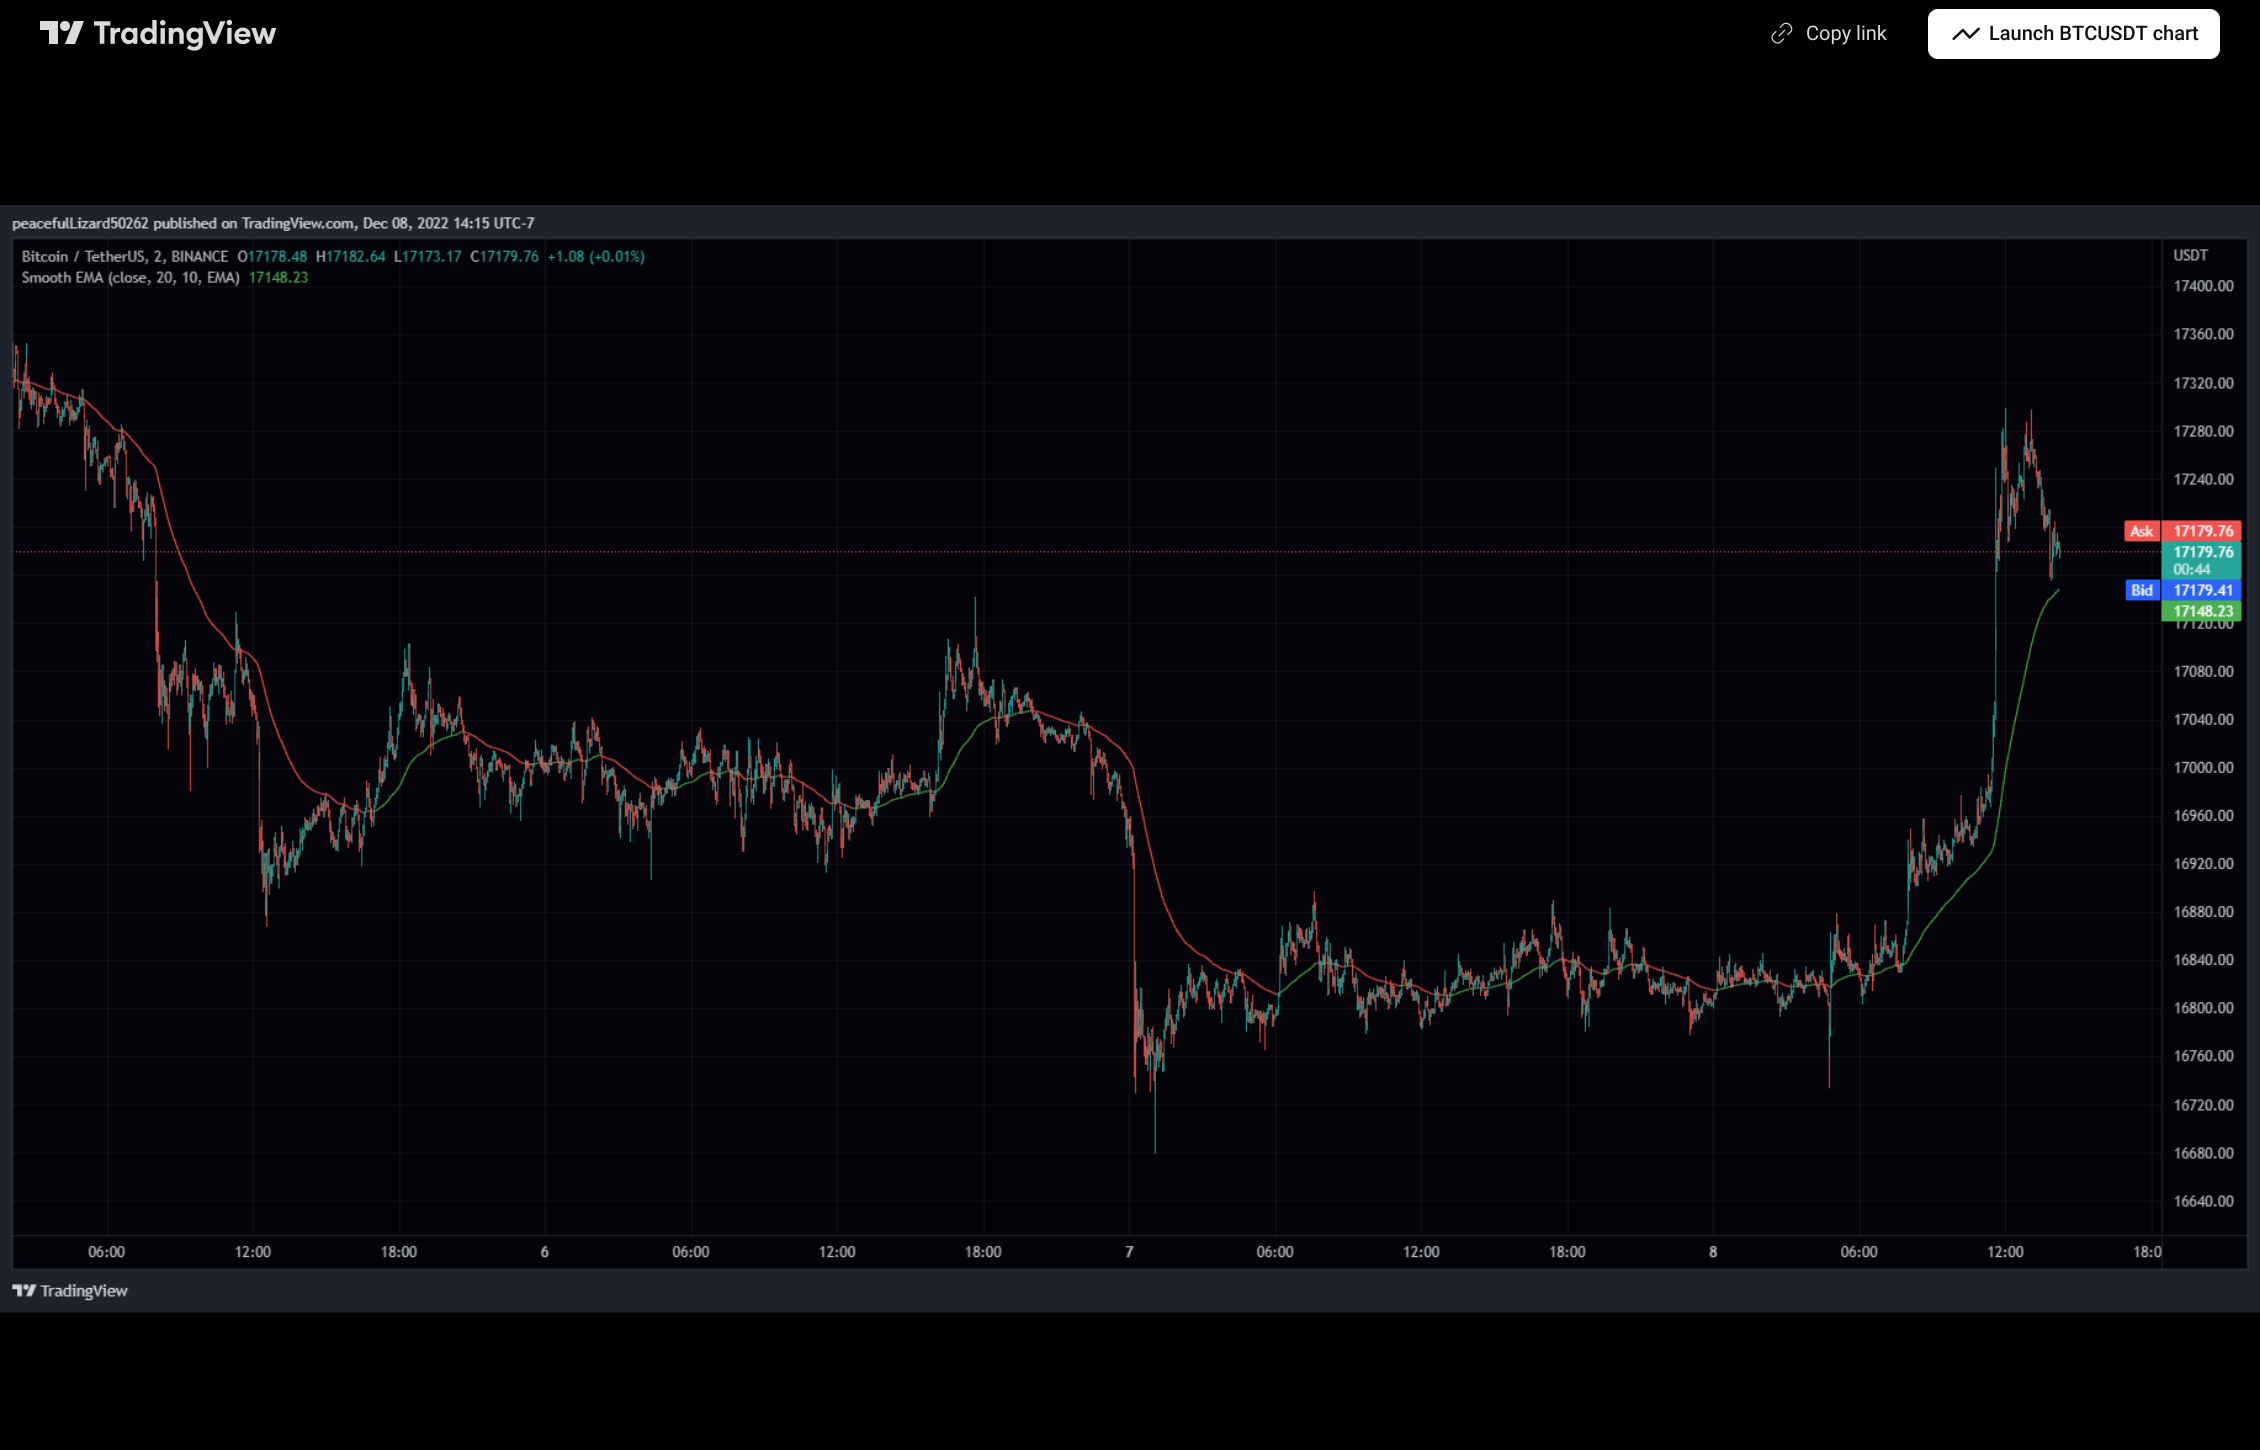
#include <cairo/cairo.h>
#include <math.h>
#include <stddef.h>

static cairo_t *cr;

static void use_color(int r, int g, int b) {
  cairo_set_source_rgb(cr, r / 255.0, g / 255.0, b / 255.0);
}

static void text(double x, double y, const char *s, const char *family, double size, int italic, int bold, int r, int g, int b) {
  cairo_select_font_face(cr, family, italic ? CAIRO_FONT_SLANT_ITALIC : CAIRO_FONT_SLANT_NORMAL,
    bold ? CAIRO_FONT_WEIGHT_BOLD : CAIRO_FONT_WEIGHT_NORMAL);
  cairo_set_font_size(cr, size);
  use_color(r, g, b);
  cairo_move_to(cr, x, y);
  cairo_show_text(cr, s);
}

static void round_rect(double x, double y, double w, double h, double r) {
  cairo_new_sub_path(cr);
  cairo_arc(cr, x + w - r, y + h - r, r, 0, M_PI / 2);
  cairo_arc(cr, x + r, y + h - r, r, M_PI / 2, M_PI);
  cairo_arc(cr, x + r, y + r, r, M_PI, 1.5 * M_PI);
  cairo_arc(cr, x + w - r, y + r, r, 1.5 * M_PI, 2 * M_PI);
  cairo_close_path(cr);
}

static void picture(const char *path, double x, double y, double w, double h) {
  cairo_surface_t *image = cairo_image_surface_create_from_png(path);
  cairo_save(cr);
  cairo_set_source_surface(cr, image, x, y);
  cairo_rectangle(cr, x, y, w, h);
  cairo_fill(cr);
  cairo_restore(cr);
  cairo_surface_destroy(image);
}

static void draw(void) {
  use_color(0, 0, 0);
  cairo_paint(cr);
  use_color(219, 219, 219);
  cairo_new_path(cr);
  cairo_move_to(cr, 58, 44);
  cairo_line_to(cr, 49, 44);
  cairo_line_to(cr, 49, 30);
  cairo_line_to(cr, 40, 30);
  cairo_line_to(cr, 40, 21);
  cairo_line_to(cr, 58, 21);
  cairo_close_path(cr);
  cairo_move_to(cr, 75, 44);
  cairo_line_to(cr, 65, 44);
  cairo_line_to(cr, 74, 21);
  cairo_line_to(cr, 84, 21);
  cairo_close_path(cr);
  cairo_fill(cr);
  cairo_arc(cr, 65, 26, 5, 0, 2 * M_PI);
  cairo_fill(cr);
  picture("img_01.png", 94, 19, 183, 32);
  picture("img_02.png", 1771, 22, 22, 22);
  use_color(255, 255, 255);
  round_rect(1928.5, 9.5, 291, 49, 9.5);
  cairo_fill_preserve(cr);
  cairo_set_line_width(cr, 1);
  cairo_stroke(cr);
  picture("img_03.png", 1952, 27, 28, 13);
  picture("img_04.png", 0, 205, 2260, 1108);
  text(1806, 40, "Copy link", "Roboto", 20, 0, 0, 219, 219, 219);
  text(1989, 40, "Launch BTCUSDT chart", "Roboto Medium", 20, 0, 0, 15, 15, 15);
}

int main(void) {
  cairo_surface_t *surface = cairo_image_surface_create(CAIRO_FORMAT_RGB24, 2260, 1450);
  cr = cairo_create(surface);
  cairo_font_options_t *options = cairo_font_options_create();
  cairo_font_options_set_hint_metrics(options, CAIRO_HINT_METRICS_OFF);
  cairo_font_options_set_hint_style(options, CAIRO_HINT_STYLE_NONE);
  cairo_set_font_options(cr, options);
  cairo_set_miter_limit(cr, 4);
  draw();
  cairo_surface_write_to_png(surface, "out.png");
  cairo_font_options_destroy(options);
  cairo_destroy(cr);
  cairo_surface_destroy(surface);
  return 0;
}
